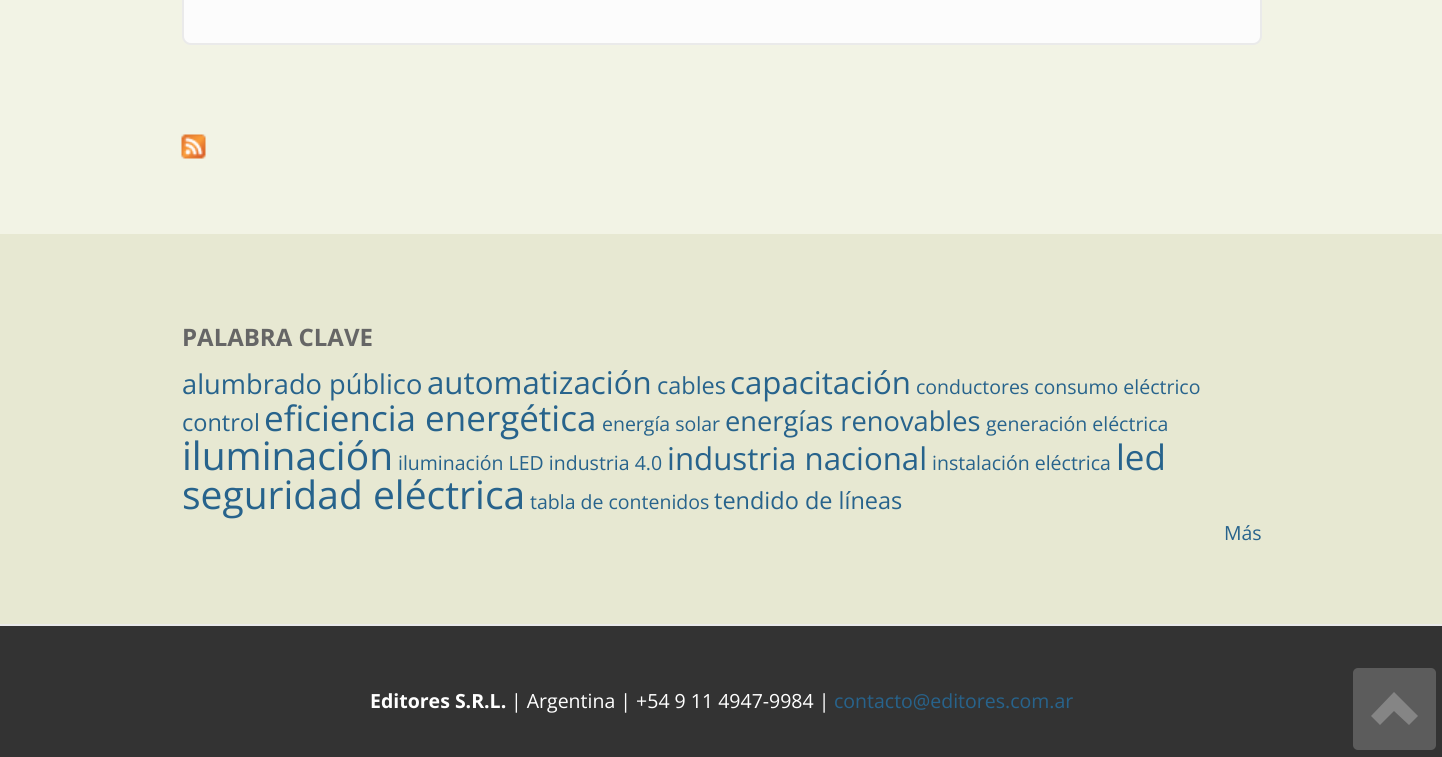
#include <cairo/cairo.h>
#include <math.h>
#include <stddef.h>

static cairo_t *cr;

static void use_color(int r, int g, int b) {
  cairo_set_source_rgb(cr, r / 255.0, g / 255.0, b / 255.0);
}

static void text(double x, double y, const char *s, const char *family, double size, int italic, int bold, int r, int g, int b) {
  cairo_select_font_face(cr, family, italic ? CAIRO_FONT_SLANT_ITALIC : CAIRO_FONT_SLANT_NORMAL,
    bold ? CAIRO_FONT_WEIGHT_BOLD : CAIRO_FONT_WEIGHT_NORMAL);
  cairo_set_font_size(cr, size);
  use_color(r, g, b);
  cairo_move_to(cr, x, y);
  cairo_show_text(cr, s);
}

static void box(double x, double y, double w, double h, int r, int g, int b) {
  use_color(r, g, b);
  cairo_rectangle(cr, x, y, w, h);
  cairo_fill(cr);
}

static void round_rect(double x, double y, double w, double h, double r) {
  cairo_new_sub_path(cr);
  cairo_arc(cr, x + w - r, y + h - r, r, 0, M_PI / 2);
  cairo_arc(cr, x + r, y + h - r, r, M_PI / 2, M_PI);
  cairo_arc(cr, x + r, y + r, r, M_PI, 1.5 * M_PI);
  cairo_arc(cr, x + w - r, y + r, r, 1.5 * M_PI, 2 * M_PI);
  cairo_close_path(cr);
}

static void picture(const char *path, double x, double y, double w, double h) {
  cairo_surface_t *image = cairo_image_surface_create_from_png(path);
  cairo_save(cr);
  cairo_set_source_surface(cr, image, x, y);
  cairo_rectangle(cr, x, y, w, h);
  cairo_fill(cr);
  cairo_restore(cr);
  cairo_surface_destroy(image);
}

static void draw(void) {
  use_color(242, 243, 229);
  cairo_paint(cr);
  use_color(252, 252, 252);
  round_rect(183, -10, 1078, 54, 8);
  cairo_fill_preserve(cr);
  use_color(234, 234, 234);
  cairo_stroke(cr);
  picture("img_01.png", 181, 134, 25, 25);
  box(0, 234, 1442, 390, 231, 232, 210);
  box(0, 626, 1442, 131, 51, 51, 51);
  box(0, 624, 1442, 2, 234, 234, 234);
  use_color(92, 92, 92);
  round_rect(1353, 668, 83, 82, 5);
  cairo_fill(cr);
  use_color(133, 133, 133);
  cairo_new_path(cr);
  cairo_move_to(cr, 1371, 716);
  cairo_line_to(cr, 1380, 725);
  cairo_line_to(cr, 1394, 711);
  cairo_line_to(cr, 1409, 725);
  cairo_line_to(cr, 1418, 716);
  cairo_line_to(cr, 1394, 692);
  cairo_close_path(cr);
  cairo_fill(cr);
  text(182, 346, "PALABRA CLAVE", "Open Sans", 24, 0, 1, 102, 102, 102);
  text(182, 394, "alumbrado público", "Open Sans", 27.25, 0, 0, 39, 99, 140);
  text(427, 394, "automatización", "Open Sans", 31.25, 0, 0, 39, 99, 140);
  text(657, 394, "cables", "Open Sans", 23.5, 0, 0, 39, 99, 140);
  text(730, 394, "capacitación", "Open Sans", 31.25, 0, 0, 39, 99, 140);
  text(916, 394, "conductores consumo eléctrico", "Open Sans", 19.5, 0, 0, 39, 99, 140);
  text(182, 431, "control", "Open Sans", 23.5, 0, 0, 39, 99, 140);
  text(264, 431, "eficiencia energética", "Open Sans", 35, 0, 0, 39, 99, 140);
  text(602, 431, "energía solar", "Open Sans", 19.5, 0, 0, 39, 99, 140);
  text(725, 431, "energías renovables", "Open Sans", 27.25, 0, 0, 39, 99, 140);
  text(986, 431, "generación eléctrica", "Open Sans", 19.5, 0, 0, 39, 99, 140);
  text(182, 470, "iluminación", "Open Sans", 39, 0, 0, 39, 99, 140);
  text(398, 470, "iluminación LED industria 4.0", "Open Sans", 19.5, 0, 0, 39, 99, 140);
  text(667, 470, "industria nacional", "Open Sans", 31.25, 0, 0, 39, 99, 140);
  text(932, 470, "instalación eléctrica", "Open Sans", 19.5, 0, 0, 39, 99, 140);
  text(1116, 470, "led", "Open Sans", 35, 0, 0, 39, 99, 140);
  text(182, 509, "seguridad eléctrica", "Open Sans", 39, 0, 0, 39, 99, 140);
  text(530, 509, "tabla de contenidos", "Open Sans", 19.5, 0, 0, 39, 99, 140);
  text(714, 509, "tendido de líneas", "Open Sans", 23.5, 0, 0, 39, 99, 140);
  text(1224, 540, "Más", "Open Sans", 19.5, 0, 0, 39, 99, 140);
  text(370, 708, "Editores S.R.L.", "Open Sans", 19.5, 0, 1, 255, 255, 255);
  text(511, 708, "| Argentina | +54 9 11 4947-9984 |", "Open Sans", 19.5, 0, 0, 255, 255, 255);
  text(834, 708, "contacto@editores.com.ar", "Open Sans", 19.5, 0, 0, 39, 99, 140);
}

int main(void) {
  cairo_surface_t *surface = cairo_image_surface_create(CAIRO_FORMAT_RGB24, 1442, 757);
  cr = cairo_create(surface);
  cairo_font_options_t *options = cairo_font_options_create();
  cairo_font_options_set_hint_metrics(options, CAIRO_HINT_METRICS_OFF);
  cairo_font_options_set_hint_style(options, CAIRO_HINT_STYLE_NONE);
  cairo_set_font_options(cr, options);
  cairo_set_miter_limit(cr, 4);
  draw();
  cairo_surface_write_to_png(surface, "out.png");
  cairo_font_options_destroy(options);
  cairo_destroy(cr);
  cairo_surface_destroy(surface);
  return 0;
}
